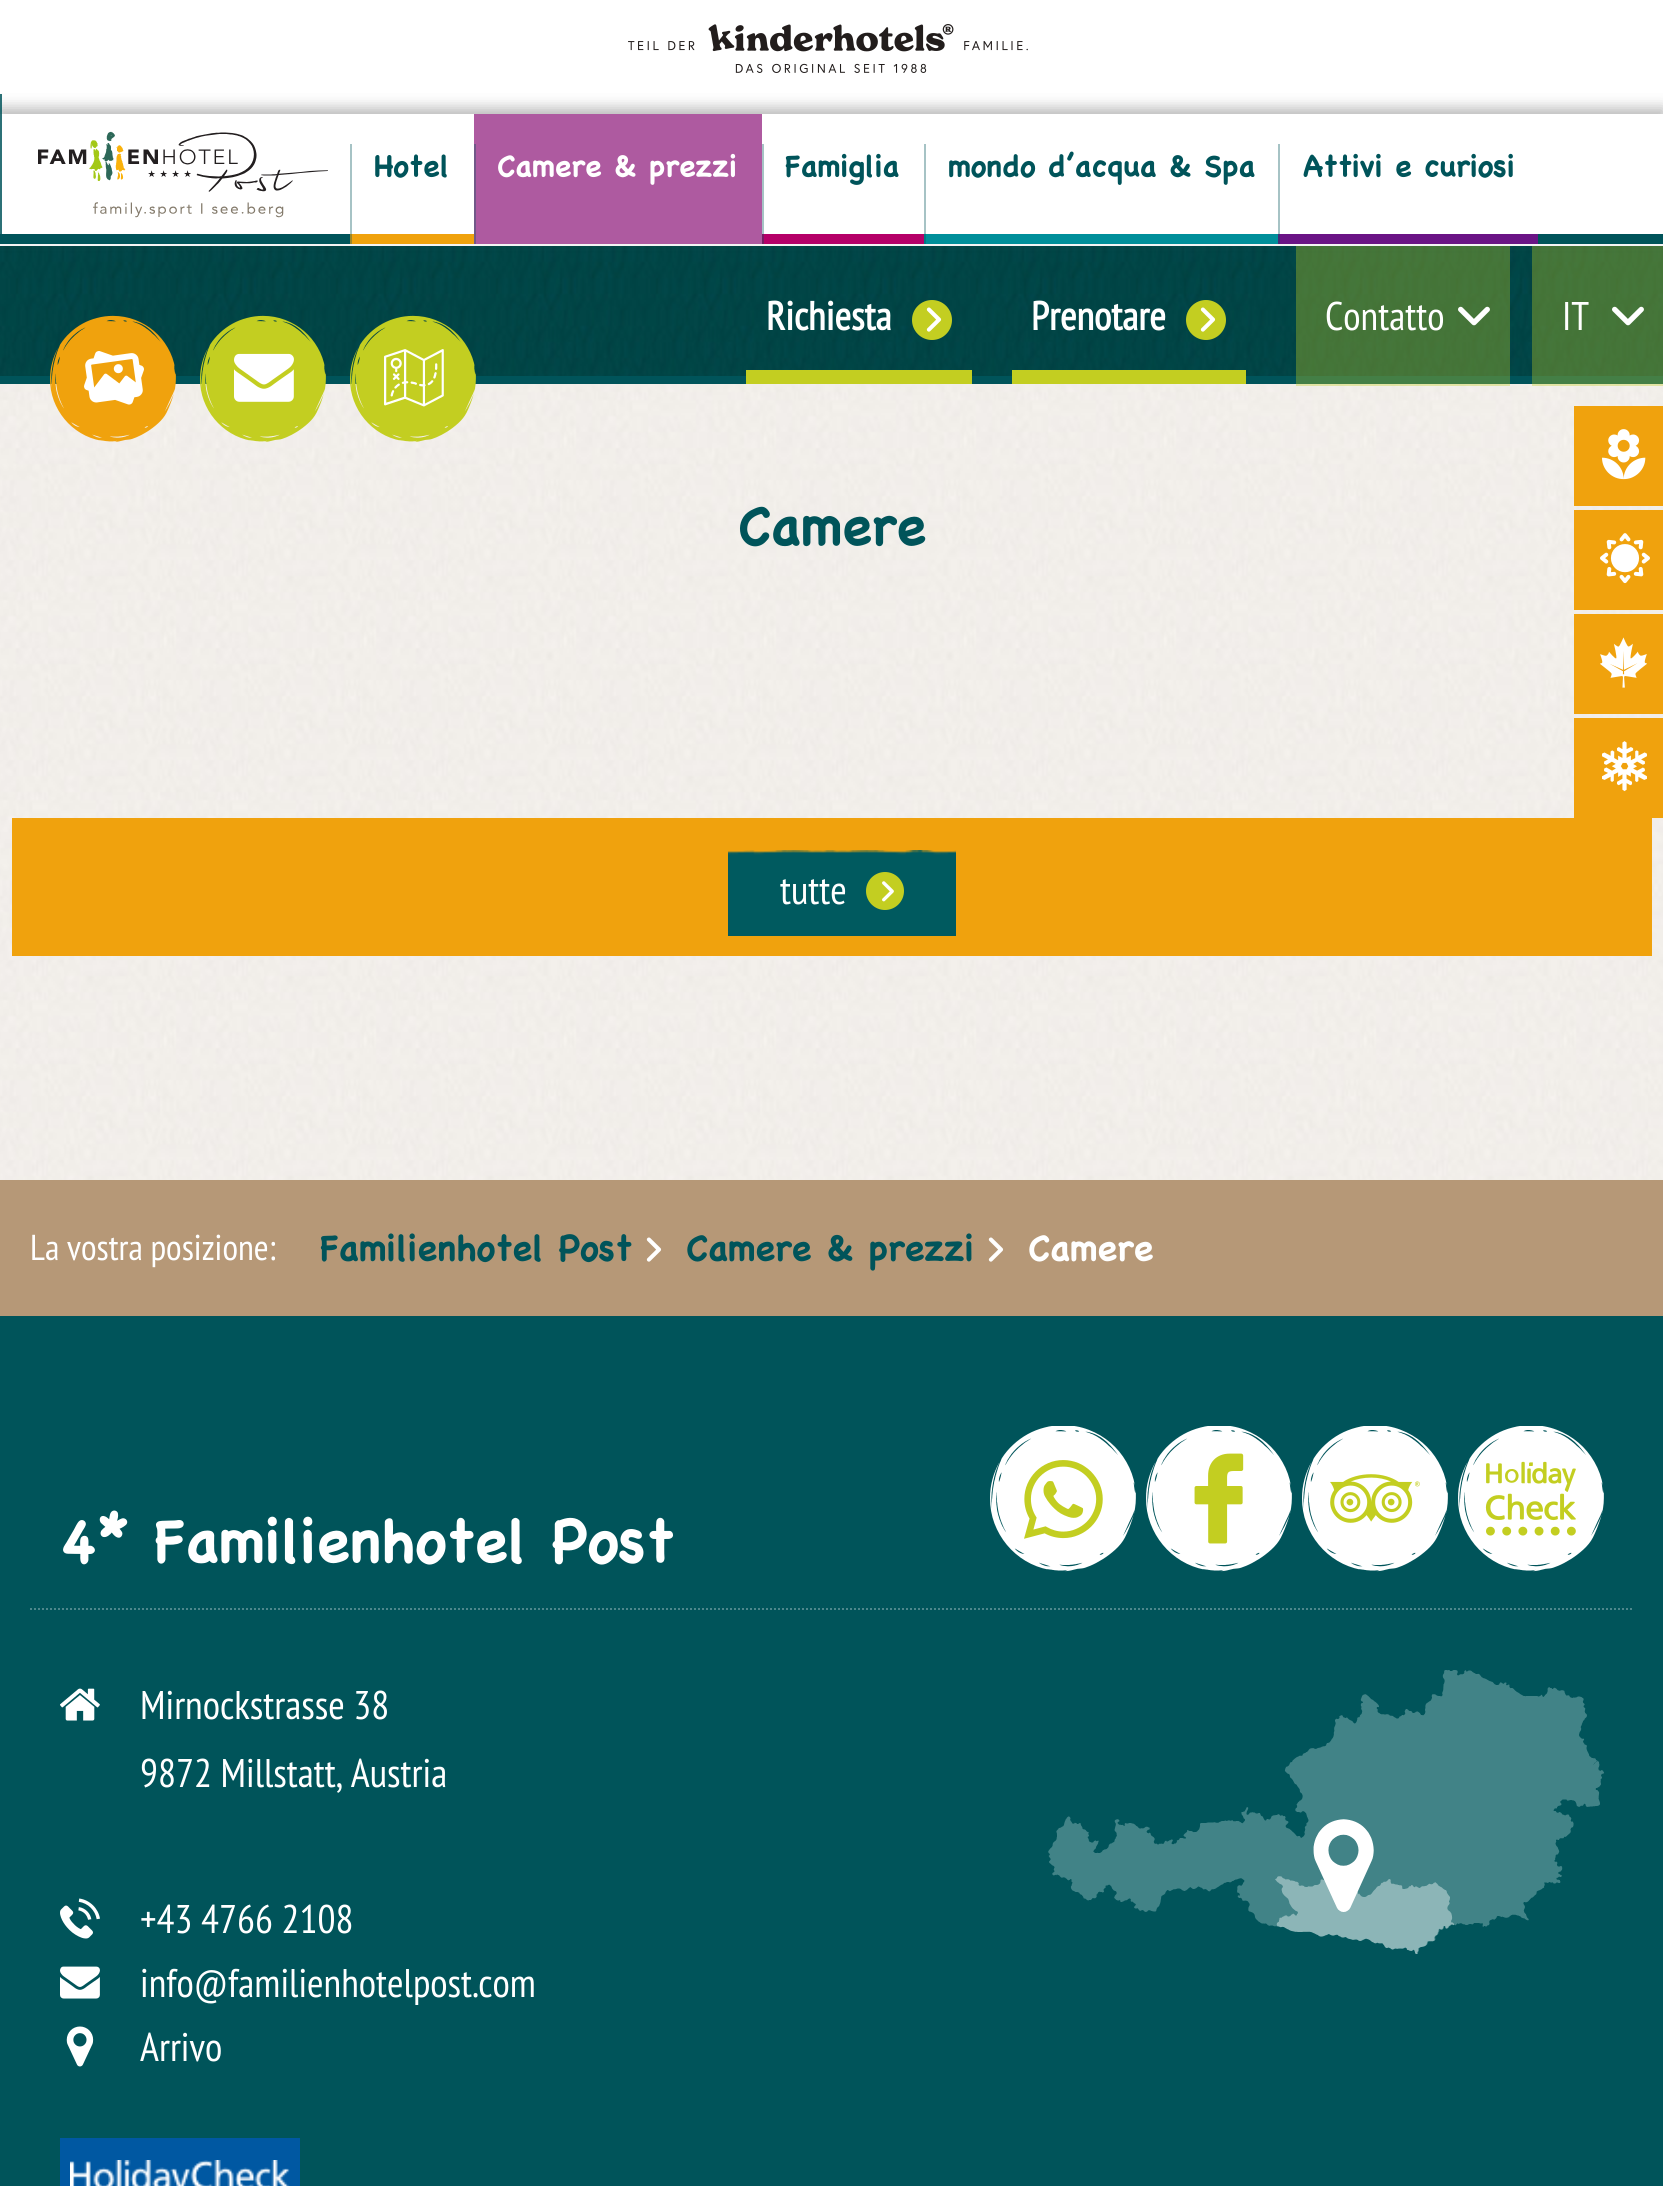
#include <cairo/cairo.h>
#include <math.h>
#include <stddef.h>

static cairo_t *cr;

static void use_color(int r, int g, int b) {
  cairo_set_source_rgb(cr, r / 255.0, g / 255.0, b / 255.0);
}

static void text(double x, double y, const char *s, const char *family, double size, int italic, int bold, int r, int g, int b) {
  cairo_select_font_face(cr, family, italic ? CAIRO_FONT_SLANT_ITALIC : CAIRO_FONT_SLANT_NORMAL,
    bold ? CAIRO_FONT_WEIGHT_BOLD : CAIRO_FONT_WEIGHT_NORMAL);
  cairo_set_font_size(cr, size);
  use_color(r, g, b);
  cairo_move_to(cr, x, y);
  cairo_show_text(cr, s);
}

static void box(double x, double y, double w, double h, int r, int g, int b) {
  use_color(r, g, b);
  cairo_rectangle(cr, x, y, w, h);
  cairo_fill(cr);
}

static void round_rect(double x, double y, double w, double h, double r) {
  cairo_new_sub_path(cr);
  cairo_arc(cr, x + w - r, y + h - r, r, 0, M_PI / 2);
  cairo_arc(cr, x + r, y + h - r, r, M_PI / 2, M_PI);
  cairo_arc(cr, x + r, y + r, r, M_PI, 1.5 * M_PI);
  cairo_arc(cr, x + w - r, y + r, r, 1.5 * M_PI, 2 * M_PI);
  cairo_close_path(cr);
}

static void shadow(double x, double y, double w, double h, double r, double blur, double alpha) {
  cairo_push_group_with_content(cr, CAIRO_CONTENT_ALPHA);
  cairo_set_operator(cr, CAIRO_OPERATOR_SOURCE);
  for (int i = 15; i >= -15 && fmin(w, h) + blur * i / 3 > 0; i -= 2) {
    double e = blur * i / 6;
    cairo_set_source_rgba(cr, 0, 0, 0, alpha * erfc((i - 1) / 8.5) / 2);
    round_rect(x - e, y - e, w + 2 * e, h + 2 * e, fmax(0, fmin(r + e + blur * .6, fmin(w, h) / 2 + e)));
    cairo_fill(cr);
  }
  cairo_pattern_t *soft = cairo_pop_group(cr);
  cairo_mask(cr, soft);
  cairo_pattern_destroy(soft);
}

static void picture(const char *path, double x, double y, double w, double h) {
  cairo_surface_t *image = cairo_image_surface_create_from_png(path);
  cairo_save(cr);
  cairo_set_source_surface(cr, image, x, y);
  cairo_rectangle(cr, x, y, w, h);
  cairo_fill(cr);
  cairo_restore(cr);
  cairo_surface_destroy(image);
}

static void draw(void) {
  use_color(255, 255, 255);
  cairo_paint(cr);
  picture("img_01.png", 0, 384, 1663, 796);
  picture("img_02.png", 628, 24, 400, 49);
  picture("img_04.png", 0, 246, 1663, 130);
  box(0, 376, 1663, 8, 0, 84, 90);
  cairo_set_source_rgba(cr, 0.765, 0.808, 0.129, 0.35);
  cairo_rectangle(cr, 1296, 246, 214, 140);
  cairo_fill(cr);
  cairo_rectangle(cr, 1532, 246, 131, 140);
  cairo_fill(cr);
  use_color(50, 50, 50);
  shadow(0, 108, 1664, 130, 0, 7, 0.35);
  box(0, 114, 1663, 120, 255, 255, 255);
  box(0, 234, 1663, 10, 0, 84, 90);
  picture("img_03.png", 38, 131, 290, 87);
  cairo_set_source_rgba(cr, 0, 0.329, 0.353, 0.3);
  cairo_rectangle(cr, 0, 94, 2, 140);
  cairo_fill(cr);
  box(350, 234, 124, 10, 240, 162, 13);
  cairo_set_source_rgba(cr, 0, 0.329, 0.353, 0.35);
  cairo_rectangle(cr, 350, 144, 2, 100);
  cairo_fill(cr);
  box(474, 114, 288, 120, 174, 90, 160);
  cairo_set_source_rgba(cr, 0, 0.329, 0.353, 0.3);
  cairo_rectangle(cr, 0, 94, 2, 140);
  cairo_fill(cr);
  box(476, 234, 286, 10, 174, 90, 160);
  box(474, 144, 2, 100, 113, 88, 136);
  cairo_set_source_rgba(cr, 0, 0.329, 0.353, 0.3);
  cairo_rectangle(cr, 0, 94, 2, 140);
  cairo_fill(cr);
  box(762, 234, 162, 10, 181, 0, 104);
  cairo_set_source_rgba(cr, 0, 0.329, 0.353, 0.35);
  cairo_rectangle(cr, 762, 144, 2, 100);
  cairo_fill(cr);
  cairo_set_source_rgba(cr, 0, 0.329, 0.353, 0.3);
  cairo_rectangle(cr, 0, 94, 2, 140);
  cairo_fill(cr);
  box(924, 234, 354, 10, 0, 143, 154);
  cairo_set_source_rgba(cr, 0, 0.329, 0.353, 0.35);
  cairo_rectangle(cr, 924, 144, 2, 100);
  cairo_fill(cr);
  cairo_set_source_rgba(cr, 0, 0.329, 0.353, 0.3);
  cairo_rectangle(cr, 0, 94, 2, 140);
  cairo_fill(cr);
  box(1278, 234, 260, 10, 106, 20, 133);
  cairo_set_source_rgba(cr, 0, 0.329, 0.353, 0.35);
  cairo_rectangle(cr, 1278, 144, 2, 100);
  cairo_fill(cr);
  picture("img_05.png", 50, 315, 126, 127);
  picture("img_06.png", 84, 351, 60, 54);
  picture("img_07.png", 200, 315, 126, 127);
  picture("img_08.png", 234, 353, 60, 49);
  picture("img_09.png", 350, 315, 126, 127);
  picture("img_10.png", 384, 349, 60, 58);
  use_color(195, 206, 33);
  cairo_arc(cr, 932, 320, 20, 0, 2 * M_PI);
  cairo_fill(cr);
  picture("img_11.png", 926, 307, 16, 25);
  box(746, 370, 226, 14, 195, 206, 33);
  cairo_arc(cr, 1206, 320, 20, 0, 2 * M_PI);
  cairo_fill(cr);
  picture("img_11.png", 1200, 307, 16, 25);
  box(1012, 370, 234, 14, 195, 206, 33);
  picture("img_12.png", 1458, 306, 32, 20);
  picture("img_13.png", 1612, 306, 32, 20);
  box(1574, 406, 89, 100, 240, 162, 13);
  picture("img_14.png", 1602, 429, 44, 51);
  box(1574, 510, 89, 100, 240, 162, 13);
  picture("img_15.png", 1600, 533, 50, 51);
  box(1574, 614, 89, 100, 240, 162, 13);
  picture("img_16.png", 1600, 637, 47, 51);
  box(1574, 718, 89, 100, 240, 162, 13);
  picture("img_17.png", 1602, 741, 45, 51);
  box(12, 818, 1640, 138, 240, 162, 13);
  picture("img_18.png", 728, 850, 228, 86);
  use_color(195, 206, 33);
  cairo_arc(cr, 885, 891, 19, 0, 2 * M_PI);
  cairo_fill(cr);
  picture("img_19.png", 882, 881, 12, 21);
  box(0, 1180, 1663, 136, 182, 152, 119);
  picture("img_20.png", 646, 1237, 16, 25);
  picture("img_20.png", 988, 1237, 16, 25);
  box(0, 1316, 1663, 870, 0, 84, 90);
  cairo_new_path(cr);
  cairo_move_to(cr, 30, 1609);
  cairo_line_to(cr, 1634, 1609);
  use_color(77, 135, 140);
  cairo_set_dash(cr, (double[]){2, 2}, 2, 0);
  cairo_stroke(cr);
  picture("img_21.png", 990, 1426, 146, 146);
  picture("img_22.png", 1024, 1460, 79, 79);
  picture("img_21.png", 1146, 1426, 146, 146);
  picture("img_23.png", 1194, 1453, 50, 91);
  picture("img_21.png", 1302, 1426, 146, 146);
  picture("img_24.png", 1330, 1474, 90, 49);
  picture("img_21.png", 1458, 1426, 146, 146);
  picture("img_25.png", 1485, 1461, 91, 75);
  picture("img_26.png", 60, 1688, 40, 33);
  picture("img_27.png", 60, 1898, 40, 41);
  picture("img_28.png", 60, 1966, 40, 33);
  picture("img_29.png", 66, 2026, 28, 41);
  picture("img_30.png", 1048, 1670, 556, 284);
  box(60, 2138, 240, 48, 0, 88, 162);
  picture("img_31.png", 70, 2160, 220, 26);
  text(374, 176, "Hotel", "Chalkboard", 30, 0, 1, 0, 84, 90);
  text(497, 176, "Camere & prezzi", "Chalkboard", 30, 0, 1, 255, 255, 255);
  text(785, 176, "Famiglia", "Chalkboard", 30, 0, 1, 0, 84, 90);
  text(948, 176, "mondo d’acqua & Spa", "Chalkboard", 30, 0, 1, 0, 84, 90);
  text(1303, 176, "Attivi e curiosi", "Chalkboard", 30, 0, 1, 0, 84, 90);
  text(766, 330, "Richiesta", "PT Sans Narrow", 40, 0, 1, 255, 255, 255);
  text(1031, 330, "Prenotare", "PT Sans Narrow", 40, 0, 1, 255, 255, 255);
  text(1325, 330, "Contatto", "PT Sans Narrow", 40, 0, 0, 255, 255, 255);
  text(1562, 330, "IT", "PT Sans Narrow", 40, 0, 0, 255, 255, 255);
  text(738, 544, "Camere", "Chalkboard", 54, 0, 1, 0, 84, 90);
  text(780, 904, "tutte", "PT Sans Narrow", 40, 0, 0, 255, 255, 255);
  text(30, 1260, "La vostra posizione:", "PT Sans Narrow", 36, 0, 0, 255, 255, 255);
  text(320, 1260, "Familienhotel Post", "Chalkboard", 36, 0, 1, 0, 84, 90);
  text(686, 1260, "Camere & prezzi", "Chalkboard", 36, 0, 1, 0, 84, 90);
  text(1028, 1260, "Camere", "Chalkboard", 36, 0, 1, 255, 255, 255);
  text(60, 1561, "4* Familienhotel Post", "Chalkboard", 60, 0, 1, 255, 255, 255);
  text(140, 1719, "Mirnockstrasse 38", "PT Sans Narrow", 40, 0, 0, 255, 255, 255);
  text(140, 1787, "9872 Millstatt, Austria", "PT Sans Narrow", 40, 0, 0, 255, 255, 255);
  text(140, 1933, "+43 4766 2108", "PT Sans Narrow", 40, 0, 0, 255, 255, 255);
  text(140, 1997, "info@familienhotelpost.com", "PT Sans Narrow", 40, 0, 0, 255, 255, 255);
  text(140, 2061, "Arrivo", "PT Sans Narrow", 40, 0, 0, 255, 255, 255);
}

int main(void) {
  cairo_surface_t *surface = cairo_image_surface_create(CAIRO_FORMAT_RGB24, 1663, 2186);
  cr = cairo_create(surface);
  cairo_font_options_t *options = cairo_font_options_create();
  cairo_font_options_set_hint_metrics(options, CAIRO_HINT_METRICS_OFF);
  cairo_font_options_set_hint_style(options, CAIRO_HINT_STYLE_NONE);
  cairo_set_font_options(cr, options);
  cairo_set_miter_limit(cr, 4);
  draw();
  cairo_surface_write_to_png(surface, "out.png");
  cairo_font_options_destroy(options);
  cairo_destroy(cr);
  cairo_surface_destroy(surface);
  return 0;
}
